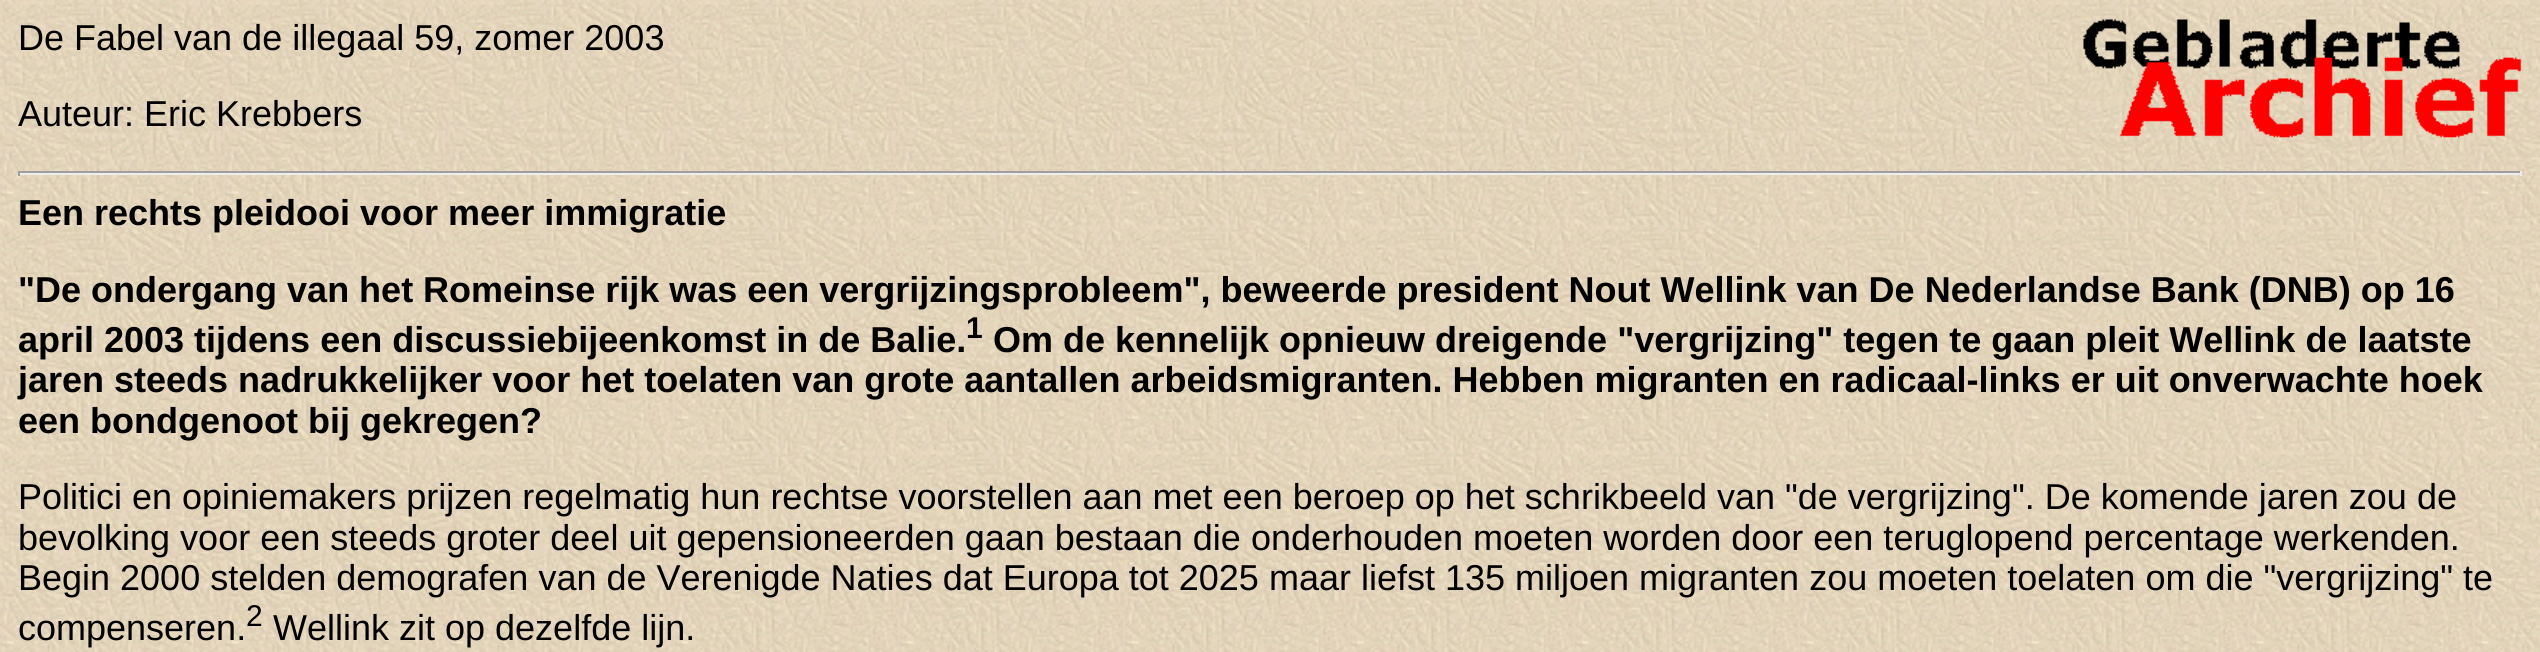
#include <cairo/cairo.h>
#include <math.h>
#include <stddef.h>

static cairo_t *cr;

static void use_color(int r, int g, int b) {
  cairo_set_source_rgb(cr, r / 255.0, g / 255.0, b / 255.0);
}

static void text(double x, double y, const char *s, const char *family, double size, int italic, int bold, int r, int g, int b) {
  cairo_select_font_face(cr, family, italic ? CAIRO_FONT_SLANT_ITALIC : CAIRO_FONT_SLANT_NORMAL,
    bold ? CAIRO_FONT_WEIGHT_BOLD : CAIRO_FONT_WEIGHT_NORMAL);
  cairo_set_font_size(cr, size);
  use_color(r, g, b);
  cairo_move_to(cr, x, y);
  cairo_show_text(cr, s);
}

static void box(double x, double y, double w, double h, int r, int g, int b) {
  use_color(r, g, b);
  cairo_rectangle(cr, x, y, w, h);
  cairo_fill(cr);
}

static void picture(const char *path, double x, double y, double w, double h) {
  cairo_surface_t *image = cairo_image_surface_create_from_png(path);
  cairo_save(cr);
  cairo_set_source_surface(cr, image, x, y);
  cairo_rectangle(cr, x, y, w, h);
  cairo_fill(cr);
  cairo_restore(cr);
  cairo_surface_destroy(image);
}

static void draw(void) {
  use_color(255, 255, 255);
  cairo_paint(cr);
  picture("img_01.png", 0, 0, 2540, 652);
  picture("img_02.png", 2083, 19, 439, 119);
  box(18, 171, 2504, 2, 159, 159, 159);
  box(2520, 171, 2, 5, 238, 238, 238);
  box(18, 173, 2504, 2, 238, 238, 238);
  box(18, 171, 2, 5, 159, 159, 159);
  text(18, 50, "De Fabel van de illegaal 59, zomer 2003", "Liberation Sans", 36, 0, 0, 0, 0, 0);
  text(18, 126, "Auteur: Eric Krebbers", "Liberation Sans", 36, 0, 0, 0, 0, 0);
  text(18, 225, "Een rechts pleidooi voor meer immigratie", "Liberation Sans", 36, 0, 1, 0, 0, 0);
  text(18, 302, "\"De ondergang van het Romeinse rijk was een vergrijzingsprobleem\", beweerde president Nout Wellink van De Nederlandse Bank (DNB) op 16", "Liberation Sans", 36, 0, 1, 0, 0, 0);
  text(18, 352, "april 2003 tijdens een discussiebijeenkomst in de Balie.", "Liberation Sans", 36, 0, 1, 0, 0, 0);
  text(966, 338, "1", "Liberation Sans", 30, 0, 1, 0, 0, 0);
  text(993, 352, "Om de kennelijk opnieuw dreigende \"vergrijzing\" tegen te gaan pleit Wellink de laatste", "Liberation Sans", 36, 0, 1, 0, 0, 0);
  text(18, 392, "jaren steeds nadrukkelijker voor het toelaten van grote aantallen arbeidsmigranten. Hebben migranten en radicaal-links er uit onverwachte hoek", "Liberation Sans", 36, 0, 1, 0, 0, 0);
  text(18, 433, "een bondgenoot bij gekregen?", "Liberation Sans", 36, 0, 1, 0, 0, 0);
  text(18, 509, "Politici en opiniemakers prijzen regelmatig hun rechtse voorstellen aan met een beroep op het schrikbeeld van \"de vergrijzing\". De komende jaren zou de", "Liberation Sans", 36, 0, 0, 0, 0, 0);
  text(18, 550, "bevolking voor een steeds groter deel uit gepensioneerden gaan bestaan die onderhouden moeten worden door een teruglopend percentage werkenden.", "Liberation Sans", 36, 0, 0, 0, 0, 0);
  text(18, 590, "Begin 2000 stelden demografen van de Verenigde Naties dat Europa tot 2025 maar liefst 135 miljoen migranten zou moeten toelaten om die \"vergrijzing\" te", "Liberation Sans", 36, 0, 0, 0, 0, 0);
  text(18, 640, "compenseren.", "Liberation Sans", 36, 0, 0, 0, 0, 0);
  text(246, 626, "2", "Liberation Sans", 30, 0, 0, 0, 0, 0);
  text(273, 640, "Wellink zit op dezelfde lijn.", "Liberation Sans", 36, 0, 0, 0, 0, 0);
}

int main(void) {
  cairo_surface_t *surface = cairo_image_surface_create(CAIRO_FORMAT_RGB24, 2540, 652);
  cr = cairo_create(surface);
  cairo_font_options_t *options = cairo_font_options_create();
  cairo_font_options_set_hint_metrics(options, CAIRO_HINT_METRICS_OFF);
  cairo_font_options_set_hint_style(options, CAIRO_HINT_STYLE_NONE);
  cairo_set_font_options(cr, options);
  cairo_set_miter_limit(cr, 4);
  draw();
  cairo_surface_write_to_png(surface, "out.png");
  cairo_font_options_destroy(options);
  cairo_destroy(cr);
  cairo_surface_destroy(surface);
  return 0;
}
